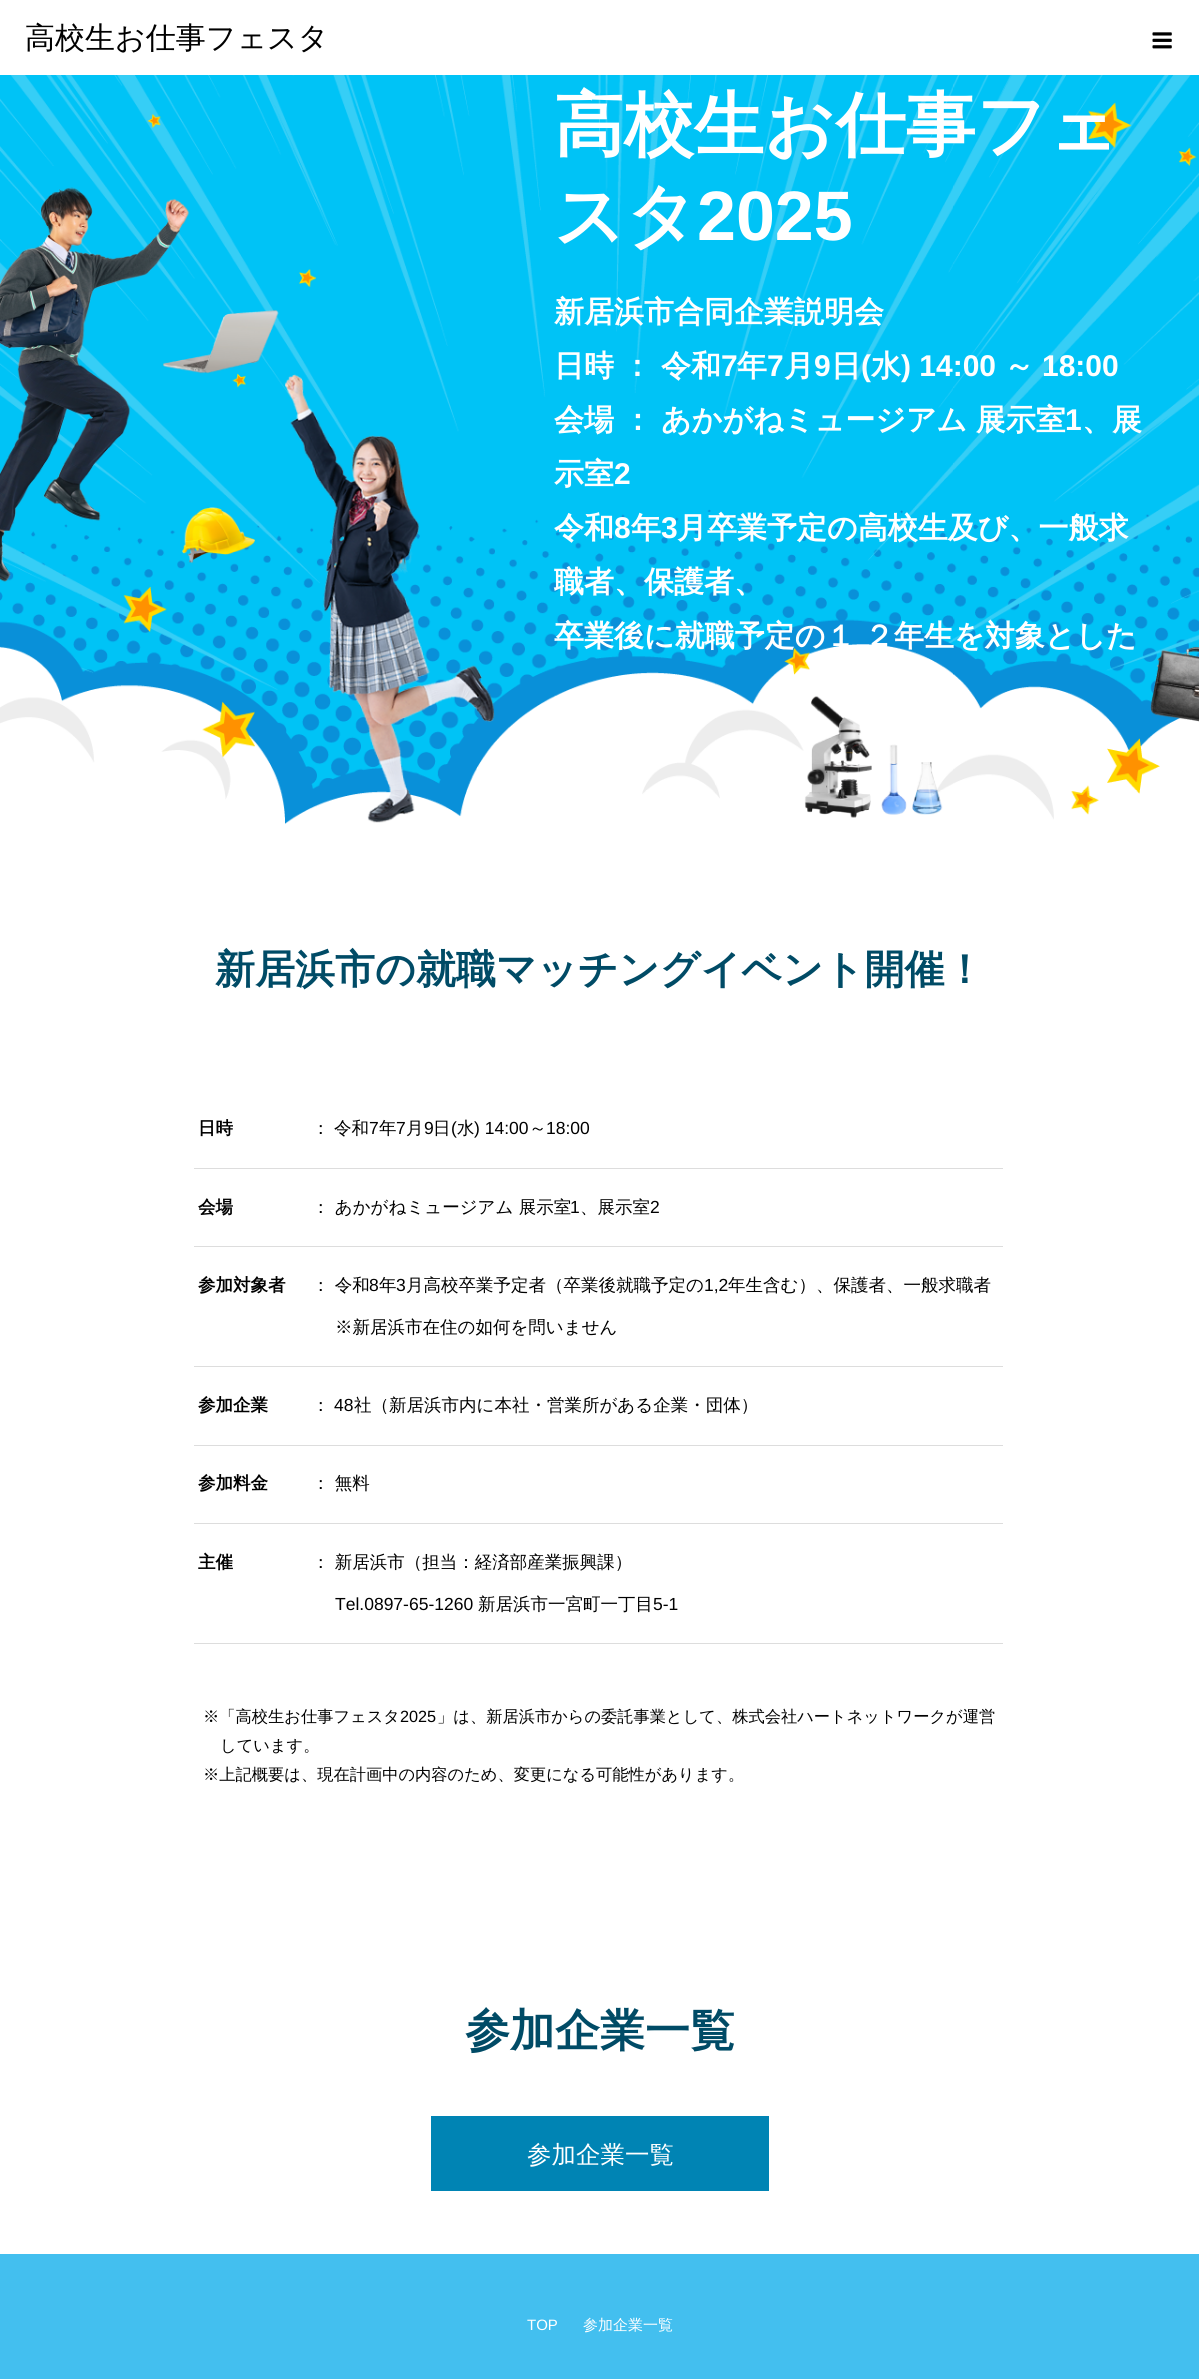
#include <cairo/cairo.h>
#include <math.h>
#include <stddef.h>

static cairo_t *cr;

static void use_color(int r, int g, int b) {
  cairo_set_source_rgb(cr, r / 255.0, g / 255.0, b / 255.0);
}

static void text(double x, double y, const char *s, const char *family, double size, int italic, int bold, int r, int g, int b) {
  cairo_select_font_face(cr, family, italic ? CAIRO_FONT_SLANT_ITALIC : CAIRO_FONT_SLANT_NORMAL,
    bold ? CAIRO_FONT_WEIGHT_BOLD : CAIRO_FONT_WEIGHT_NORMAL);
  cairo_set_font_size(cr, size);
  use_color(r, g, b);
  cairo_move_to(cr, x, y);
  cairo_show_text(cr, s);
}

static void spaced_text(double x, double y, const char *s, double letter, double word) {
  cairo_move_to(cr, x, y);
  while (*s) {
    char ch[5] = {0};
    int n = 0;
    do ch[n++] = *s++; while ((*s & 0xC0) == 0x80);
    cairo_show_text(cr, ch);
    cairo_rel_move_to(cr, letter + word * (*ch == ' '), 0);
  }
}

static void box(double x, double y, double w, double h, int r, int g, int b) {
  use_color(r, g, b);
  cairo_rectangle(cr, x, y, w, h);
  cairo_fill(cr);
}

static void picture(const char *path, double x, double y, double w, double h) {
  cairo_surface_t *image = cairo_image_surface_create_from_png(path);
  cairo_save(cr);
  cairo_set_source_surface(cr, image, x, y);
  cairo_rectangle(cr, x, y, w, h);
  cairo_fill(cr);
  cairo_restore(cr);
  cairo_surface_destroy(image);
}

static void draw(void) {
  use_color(255, 255, 255);
  cairo_paint(cr);
  picture("img_01.png", 1152, 32, 20, 17);
  picture("img_02.png", 0, 75, 1199, 750);
  box(194, 1168, 809, 1, 221, 221, 221);
  box(194, 1246, 809, 1, 221, 221, 221);
  box(194, 1366, 809, 1, 221, 221, 221);
  box(194, 1445, 809, 1, 221, 221, 221);
  box(194, 1523, 809, 1, 221, 221, 221);
  box(194, 1643, 809, 1, 221, 221, 221);
  box(431, 2116, 338, 75, 0, 132, 180);
  box(0, 2254, 1199, 125, 67, 191, 239);
  text(25, 48, "高校生お仕事フェスタ", "WenQuanYi Zen Hei Medium", 30, 0, 0, 0, 0, 0);
  text(554, 149, "高校生お仕事フェ", "WenQuanYi Zen Hei", 70, 0, 1, 255, 255, 255);
  text(554, 240, "スタ", "WenQuanYi Zen Hei", 70, 0, 1, 255, 255, 255);
  text(697, 240, "2025", "Liberation Sans", 70, 0, 1, 255, 255, 255);
  text(554, 322, "新居浜市合同企業説明会", "WenQuanYi Zen Hei", 30, 0, 1, 255, 255, 255);
  text(554, 376, "日時", "WenQuanYi Zen Hei", 30, 0, 1, 255, 255, 255);
  text(622, 376, "：", "WenQuanYi Zen Hei", 30, 0, 1, 255, 255, 255);
  text(661, 376, "令和", "WenQuanYi Zen Hei", 30, 0, 1, 255, 255, 255);
  text(721, 376, "7", "Liberation Sans", 30, 0, 1, 255, 255, 255);
  text(737, 376, "年", "WenQuanYi Zen Hei", 30, 0, 1, 255, 255, 255);
  text(767, 376, "7", "Liberation Sans", 30, 0, 1, 255, 255, 255);
  text(784, 376, "月", "WenQuanYi Zen Hei", 30, 0, 1, 255, 255, 255);
  text(814, 376, "9", "Liberation Sans", 30, 0, 1, 255, 255, 255);
  text(831, 376, "日", "WenQuanYi Zen Hei", 30, 0, 1, 255, 255, 255);
  text(861, 376, "(", "Liberation Sans", 30, 0, 1, 255, 255, 255);
  text(871, 376, "水", "WenQuanYi Zen Hei", 30, 0, 1, 255, 255, 255);
  text(901, 376, ") 14:00", "Liberation Sans", 30, 0, 1, 255, 255, 255);
  text(1004, 376, "～", "WenQuanYi Zen Hei", 30, 0, 1, 255, 255, 255);
  text(1042, 376, "18:00", "Liberation Sans", 30, 0, 1, 255, 255, 255);
  cairo_select_font_face(cr, "WenQuanYi Zen Hei", CAIRO_FONT_SLANT_NORMAL, CAIRO_FONT_WEIGHT_BOLD);
  spaced_text(554, 430, "会場 ： あかがねミュージアム 展示室", 0, -0.5);
  text(1065, 430, "1", "Liberation Sans", 30, 0, 1, 255, 255, 255);
  text(1082, 430, "、展", "WenQuanYi Zen Hei", 30, 0, 1, 255, 255, 255);
  text(554, 484, "示室", "WenQuanYi Zen Hei", 30, 0, 1, 255, 255, 255);
  text(614, 484, "2", "Liberation Sans", 30, 0, 1, 255, 255, 255);
  text(554, 538, "令和", "WenQuanYi Zen Hei", 30, 0, 1, 255, 255, 255);
  text(614, 538, "8", "Liberation Sans", 30, 0, 1, 255, 255, 255);
  text(631, 538, "年", "WenQuanYi Zen Hei", 30, 0, 1, 255, 255, 255);
  text(661, 538, "3", "Liberation Sans", 30, 0, 1, 255, 255, 255);
  text(677, 538, "月卒業予定の高校生及び、一般求", "WenQuanYi Zen Hei", 30, 0, 1, 255, 255, 255);
  text(554, 592, "職者、保護者、", "WenQuanYi Zen Hei", 30, 0, 1, 255, 255, 255);
  text(554, 646, "卒業後に就職予定の１", "WenQuanYi Zen Hei", 30, 0, 1, 255, 255, 255);
  text(864, 646, "２年生を対象とした", "WenQuanYi Zen Hei", 30, 0, 1, 255, 255, 255);
  text(215, 983, "新居浜市の就職マッチングイベント開催！", "WenQuanYi Zen Hei", 40, 0, 1, 0, 75, 102);
  text(198, 1134, "日時", "WenQuanYi Zen Hei", 17.5, 0, 1, 0, 0, 0);
  text(312, 1134, "：", "WenQuanYi Zen Hei Medium", 17.5, 0, 0, 0, 0, 0);
  text(334, 1134, "令和", "WenQuanYi Zen Hei Medium", 17.5, 0, 0, 0, 0, 0);
  text(369, 1134, "7", "Liberation Sans", 17.5, 0, 0, 0, 0, 0);
  text(379, 1134, "年", "WenQuanYi Zen Hei Medium", 17.5, 0, 0, 0, 0, 0);
  text(396, 1134, "7", "Liberation Sans", 17.5, 0, 0, 0, 0, 0);
  text(406, 1134, "月", "WenQuanYi Zen Hei Medium", 17.5, 0, 0, 0, 0, 0);
  text(424, 1134, "9", "Liberation Sans", 17.5, 0, 0, 0, 0, 0);
  text(433, 1134, "日", "WenQuanYi Zen Hei Medium", 17.5, 0, 0, 0, 0, 0);
  text(451, 1134, "(", "Liberation Sans", 17.5, 0, 0, 0, 0, 0);
  text(457, 1134, "水", "WenQuanYi Zen Hei Medium", 17.5, 0, 0, 0, 0, 0);
  text(474, 1134, ") 14:00", "Liberation Sans", 17.5, 0, 0, 0, 0, 0);
  text(529, 1134, "～", "WenQuanYi Zen Hei Medium", 17.5, 0, 0, 0, 0, 0);
  text(546, 1134, "18:00", "Liberation Sans", 17.5, 0, 0, 0, 0, 0);
  text(198, 1213, "会場", "WenQuanYi Zen Hei", 17.5, 0, 1, 0, 0, 0);
  text(312, 1213, "： あかがねミュージアム 展示室", "WenQuanYi Zen Hei Medium", 17.5, 0, 0, 0, 0, 0);
  text(570, 1213, "1", "Liberation Sans", 17.5, 0, 0, 0, 0, 0);
  text(580, 1213, "、展示室", "WenQuanYi Zen Hei Medium", 17.5, 0, 0, 0, 0, 0);
  text(650, 1213, "2", "Liberation Sans", 17.5, 0, 0, 0, 0, 0);
  text(198, 1291, "参加対象者", "WenQuanYi Zen Hei", 17.5, 0, 1, 0, 0, 0);
  text(312, 1291, "： 令和", "WenQuanYi Zen Hei Medium", 17.5, 0, 0, 0, 0, 0);
  text(369, 1291, "8", "Liberation Sans", 17.5, 0, 0, 0, 0, 0);
  text(379, 1291, "年", "WenQuanYi Zen Hei Medium", 17.5, 0, 0, 0, 0, 0);
  text(396, 1291, "3", "Liberation Sans", 17.5, 0, 0, 0, 0, 0);
  text(406, 1291, "月高校卒業予定者（卒業後就職予定の", "WenQuanYi Zen Hei Medium", 17.5, 0, 0, 0, 0, 0);
  text(704, 1291, "1,2", "Liberation Sans", 17.5, 0, 0, 0, 0, 0);
  text(728, 1291, "年生含む）、保護者、一般求職者", "WenQuanYi Zen Hei Medium", 17.5, 0, 0, 0, 0, 0);
  text(335, 1333, "※新居浜市在住の如何を問いません", "WenQuanYi Zen Hei Medium", 17.5, 0, 0, 0, 0, 0);
  text(198, 1411, "参加企業", "WenQuanYi Zen Hei", 17.5, 0, 1, 0, 0, 0);
  text(312, 1411, "：", "WenQuanYi Zen Hei Medium", 17.5, 0, 0, 0, 0, 0);
  text(334, 1411, "48", "Liberation Sans", 17.5, 0, 0, 0, 0, 0);
  text(354, 1411, "社（新居浜市内に本社・営業所がある企業・団体）", "WenQuanYi Zen Hei Medium", 17.5, 0, 0, 0, 0, 0);
  text(198, 1489, "参加料金", "WenQuanYi Zen Hei", 17.5, 0, 1, 0, 0, 0);
  text(312, 1489, "： 無料", "WenQuanYi Zen Hei Medium", 17.5, 0, 0, 0, 0, 0);
  text(198, 1568, "主催", "WenQuanYi Zen Hei", 17.5, 0, 1, 0, 0, 0);
  text(312, 1568, "： 新居浜市（担当：経済部産業振興課）", "WenQuanYi Zen Hei Medium", 17.5, 0, 0, 0, 0, 0);
  text(335, 1610, "Tel.0897-65-1260", "Liberation Sans", 17.5, 0, 0, 0, 0, 0);
  text(478, 1610, "新居浜市一宮町一丁目", "WenQuanYi Zen Hei Medium", 17.5, 0, 0, 0, 0, 0);
  text(653, 1610, "5-1", "Liberation Sans", 17.5, 0, 0, 0, 0, 0);
  text(203, 1722, "※「高校生お仕事フェスタ", "WenQuanYi Zen Hei Medium", 16.25, 0, 0, 0, 0, 0);
  text(400, 1722, "2025", "Liberation Sans", 16.25, 0, 0, 0, 0, 0);
  text(437, 1722, "」は、新居浜市からの委託事業として、株式会社ハートネットワークが運営", "WenQuanYi Zen Hei Medium", 16.25, 0, 0, 0, 0, 0);
  text(220, 1751, "しています。", "WenQuanYi Zen Hei Medium", 16.25, 0, 0, 0, 0, 0);
  text(203, 1780, "※上記概要は、現在計画中の内容のため、変更になる可能性があります。", "WenQuanYi Zen Hei Medium", 16.25, 0, 0, 0, 0, 0);
  text(465, 2046, "参加企業一覧", "WenQuanYi Zen Hei", 45, 0, 1, 0, 75, 102);
  text(527, 2163, "参加企業一覧", "WenQuanYi Zen Hei Medium", 24.5, 0, 0, 255, 255, 255);
  text(527, 2330, "TOP", "Liberation Sans", 15, 0, 0, 255, 255, 255);
  text(583, 2330, "参加企業一覧", "WenQuanYi Zen Hei Medium", 15, 0, 0, 255, 255, 255);
}

int main(void) {
  cairo_surface_t *surface = cairo_image_surface_create(CAIRO_FORMAT_RGB24, 1199, 2379);
  cr = cairo_create(surface);
  cairo_font_options_t *options = cairo_font_options_create();
  cairo_font_options_set_hint_metrics(options, CAIRO_HINT_METRICS_OFF);
  cairo_font_options_set_hint_style(options, CAIRO_HINT_STYLE_NONE);
  cairo_set_font_options(cr, options);
  cairo_set_miter_limit(cr, 4);
  draw();
  cairo_surface_write_to_png(surface, "out.png");
  cairo_font_options_destroy(options);
  cairo_destroy(cr);
  cairo_surface_destroy(surface);
  return 0;
}
